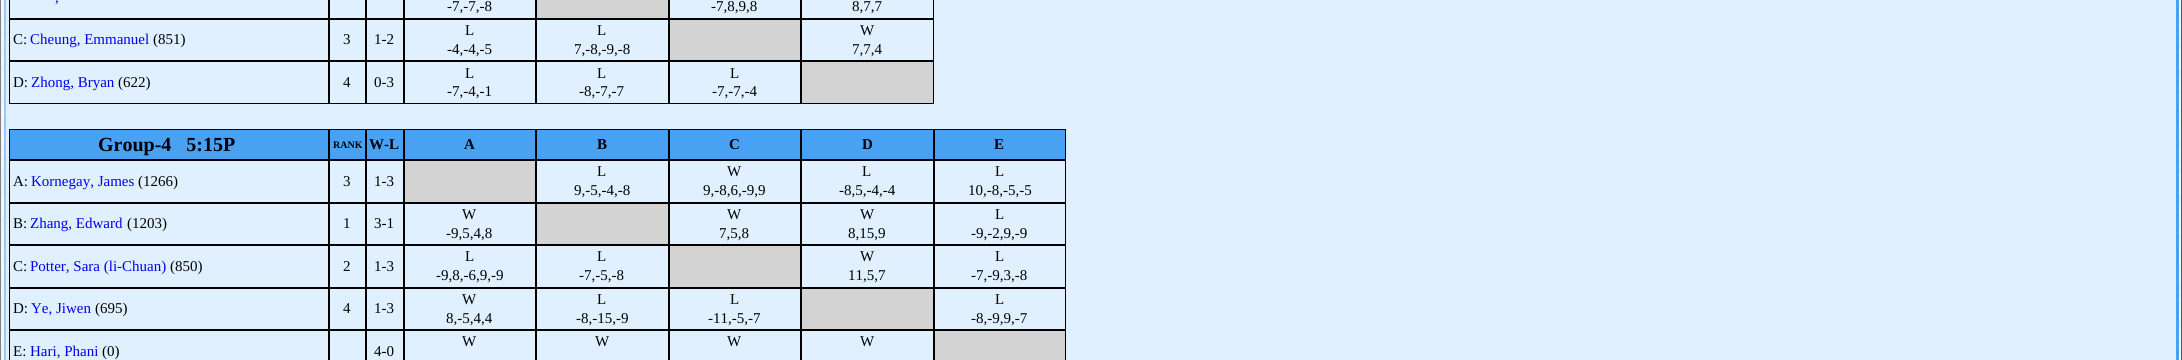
#include <cairo/cairo.h>
#include <math.h>
#include <stddef.h>

static cairo_t *cr;

static void use_color(int r, int g, int b) {
  cairo_set_source_rgb(cr, r / 255.0, g / 255.0, b / 255.0);
}

static void text(double x, double y, const char *s, const char *family, double size, int italic, int bold, int r, int g, int b) {
  cairo_select_font_face(cr, family, italic ? CAIRO_FONT_SLANT_ITALIC : CAIRO_FONT_SLANT_NORMAL,
    bold ? CAIRO_FONT_WEIGHT_BOLD : CAIRO_FONT_WEIGHT_NORMAL);
  cairo_set_font_size(cr, size);
  use_color(r, g, b);
  cairo_move_to(cr, x, y);
  cairo_show_text(cr, s);
}

static void box(double x, double y, double w, double h, int r, int g, int b) {
  use_color(r, g, b);
  cairo_rectangle(cr, x, y, w, h);
  cairo_fill(cr);
}

static void picture(const char *path, double x, double y, double w, double h) {
  cairo_surface_t *image = cairo_image_surface_create_from_png(path);
  cairo_save(cr);
  cairo_set_source_surface(cr, image, x, y);
  cairo_rectangle(cr, x, y, w, h);
  cairo_fill(cr);
  cairo_restore(cr);
  cairo_surface_destroy(image);
}

static void draw(void) {
  use_color(255, 255, 255);
  cairo_paint(cr);
  picture("img_01.png", 1, 0, 2180, 360);
  box(2181, 0, 1, 360, 85, 85, 85);
  box(0, 0, 1, 360, 128, 128, 128);
  box(6, 0, 2170, 360, 224, 240, 255);
  use_color(73, 161, 244);
  cairo_new_path(cr);
  cairo_move_to(cr, 2179, -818);
  cairo_line_to(cr, 2179, 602);
  cairo_line_to(cr, 2176, 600);
  cairo_line_to(cr, 2176, -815);
  cairo_close_path(cr);
  cairo_fill(cr);
  use_color(153, 201, 247);
  cairo_new_path(cr);
  cairo_move_to(cr, 4, 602);
  cairo_line_to(cr, 4, -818);
  cairo_line_to(cr, 6, -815);
  cairo_line_to(cr, 6, 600);
  cairo_close_path(cr);
  cairo_fill(cr);
  cairo_rectangle(cr, 9.5, -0.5, 319, 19);
  use_color(0, 0, 0);
  cairo_set_line_width(cr, 1);
  cairo_stroke(cr);
  cairo_rectangle(cr, 329.5, -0.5, 36, 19);
  cairo_stroke(cr);
  cairo_rectangle(cr, 366.5, -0.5, 37, 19);
  cairo_stroke(cr);
  cairo_rectangle(cr, 404.5, -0.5, 131, 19);
  cairo_stroke(cr);
  use_color(211, 211, 211);
  cairo_rectangle(cr, 536.5, -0.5, 132, 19);
  cairo_fill_preserve(cr);
  use_color(0, 0, 0);
  cairo_stroke(cr);
  cairo_rectangle(cr, 669.5, -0.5, 131, 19);
  cairo_stroke(cr);
  cairo_rectangle(cr, 801.5, -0.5, 132, 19);
  cairo_stroke(cr);
  cairo_rectangle(cr, 9.5, 19.5, 319, 41);
  cairo_stroke(cr);
  cairo_rectangle(cr, 329.5, 19.5, 36, 41);
  cairo_stroke(cr);
  cairo_rectangle(cr, 366.5, 19.5, 37, 41);
  cairo_stroke(cr);
  cairo_rectangle(cr, 404.5, 19.5, 131, 41);
  cairo_stroke(cr);
  cairo_rectangle(cr, 536.5, 19.5, 132, 41);
  cairo_stroke(cr);
  use_color(211, 211, 211);
  cairo_rectangle(cr, 669.5, 19.5, 131, 41);
  cairo_fill_preserve(cr);
  use_color(0, 0, 0);
  cairo_stroke(cr);
  cairo_rectangle(cr, 801.5, 19.5, 132, 41);
  cairo_stroke(cr);
  cairo_rectangle(cr, 9.5, 61.5, 319, 42);
  cairo_stroke(cr);
  cairo_rectangle(cr, 329.5, 61.5, 36, 42);
  cairo_stroke(cr);
  cairo_rectangle(cr, 366.5, 61.5, 37, 42);
  cairo_stroke(cr);
  cairo_rectangle(cr, 404.5, 61.5, 131, 42);
  cairo_stroke(cr);
  cairo_rectangle(cr, 536.5, 61.5, 132, 42);
  cairo_stroke(cr);
  cairo_rectangle(cr, 669.5, 61.5, 131, 42);
  cairo_stroke(cr);
  use_color(211, 211, 211);
  cairo_rectangle(cr, 801.5, 61.5, 132, 42);
  cairo_fill_preserve(cr);
  use_color(0, 0, 0);
  cairo_stroke(cr);
  use_color(73, 161, 244);
  cairo_rectangle(cr, 9.5, 129.5, 319, 30);
  cairo_fill_preserve(cr);
  use_color(0, 0, 0);
  cairo_stroke(cr);
  use_color(73, 161, 244);
  cairo_rectangle(cr, 329.5, 129.5, 36, 30);
  cairo_fill_preserve(cr);
  use_color(0, 0, 0);
  cairo_stroke(cr);
  use_color(73, 161, 244);
  cairo_rectangle(cr, 366.5, 129.5, 37, 30);
  cairo_fill_preserve(cr);
  use_color(0, 0, 0);
  cairo_stroke(cr);
  use_color(73, 161, 244);
  cairo_rectangle(cr, 404.5, 129.5, 131, 30);
  cairo_fill_preserve(cr);
  use_color(0, 0, 0);
  cairo_stroke(cr);
  use_color(73, 161, 244);
  cairo_rectangle(cr, 536.5, 129.5, 132, 30);
  cairo_fill_preserve(cr);
  use_color(0, 0, 0);
  cairo_stroke(cr);
  use_color(73, 161, 244);
  cairo_rectangle(cr, 669.5, 129.5, 131, 30);
  cairo_fill_preserve(cr);
  use_color(0, 0, 0);
  cairo_stroke(cr);
  use_color(73, 161, 244);
  cairo_rectangle(cr, 801.5, 129.5, 132, 30);
  cairo_fill_preserve(cr);
  use_color(0, 0, 0);
  cairo_stroke(cr);
  use_color(73, 161, 244);
  cairo_rectangle(cr, 934.5, 129.5, 131, 30);
  cairo_fill_preserve(cr);
  use_color(0, 0, 0);
  cairo_stroke(cr);
  cairo_rectangle(cr, 9.5, 160.5, 319, 42);
  cairo_stroke(cr);
  cairo_rectangle(cr, 329.5, 160.5, 36, 42);
  cairo_stroke(cr);
  cairo_rectangle(cr, 366.5, 160.5, 37, 42);
  cairo_stroke(cr);
  use_color(211, 211, 211);
  cairo_rectangle(cr, 404.5, 160.5, 131, 42);
  cairo_fill_preserve(cr);
  use_color(0, 0, 0);
  cairo_stroke(cr);
  cairo_rectangle(cr, 536.5, 160.5, 132, 42);
  cairo_stroke(cr);
  cairo_rectangle(cr, 669.5, 160.5, 131, 42);
  cairo_stroke(cr);
  cairo_rectangle(cr, 801.5, 160.5, 132, 42);
  cairo_stroke(cr);
  cairo_rectangle(cr, 934.5, 160.5, 131, 42);
  cairo_stroke(cr);
  cairo_rectangle(cr, 9.5, 203.5, 319, 41);
  cairo_stroke(cr);
  cairo_rectangle(cr, 329.5, 203.5, 36, 41);
  cairo_stroke(cr);
  cairo_rectangle(cr, 366.5, 203.5, 37, 41);
  cairo_stroke(cr);
  cairo_rectangle(cr, 404.5, 203.5, 131, 41);
  cairo_stroke(cr);
  use_color(211, 211, 211);
  cairo_rectangle(cr, 536.5, 203.5, 132, 41);
  cairo_fill_preserve(cr);
  use_color(0, 0, 0);
  cairo_stroke(cr);
  cairo_rectangle(cr, 669.5, 203.5, 131, 41);
  cairo_stroke(cr);
  cairo_rectangle(cr, 801.5, 203.5, 132, 41);
  cairo_stroke(cr);
  cairo_rectangle(cr, 934.5, 203.5, 131, 41);
  cairo_stroke(cr);
  cairo_rectangle(cr, 9.5, 245.5, 319, 42);
  cairo_stroke(cr);
  cairo_rectangle(cr, 329.5, 245.5, 36, 42);
  cairo_stroke(cr);
  cairo_rectangle(cr, 366.5, 245.5, 37, 42);
  cairo_stroke(cr);
  cairo_rectangle(cr, 404.5, 245.5, 131, 42);
  cairo_stroke(cr);
  cairo_rectangle(cr, 536.5, 245.5, 132, 42);
  cairo_stroke(cr);
  use_color(211, 211, 211);
  cairo_rectangle(cr, 669.5, 245.5, 131, 42);
  cairo_fill_preserve(cr);
  use_color(0, 0, 0);
  cairo_stroke(cr);
  cairo_rectangle(cr, 801.5, 245.5, 132, 42);
  cairo_stroke(cr);
  cairo_rectangle(cr, 934.5, 245.5, 131, 42);
  cairo_stroke(cr);
  cairo_rectangle(cr, 9.5, 288.5, 319, 41);
  cairo_stroke(cr);
  cairo_rectangle(cr, 329.5, 288.5, 36, 41);
  cairo_stroke(cr);
  cairo_rectangle(cr, 366.5, 288.5, 37, 41);
  cairo_stroke(cr);
  cairo_rectangle(cr, 404.5, 288.5, 131, 41);
  cairo_stroke(cr);
  cairo_rectangle(cr, 536.5, 288.5, 132, 41);
  cairo_stroke(cr);
  cairo_rectangle(cr, 669.5, 288.5, 131, 41);
  cairo_stroke(cr);
  use_color(211, 211, 211);
  cairo_rectangle(cr, 801.5, 288.5, 132, 41);
  cairo_fill_preserve(cr);
  use_color(0, 0, 0);
  cairo_stroke(cr);
  cairo_rectangle(cr, 934.5, 288.5, 131, 41);
  cairo_stroke(cr);
  cairo_rectangle(cr, 329.5, 330.5, 36, 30);
  cairo_stroke(cr);
  cairo_rectangle(cr, 404.5, 330.5, 131, 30);
  cairo_stroke(cr);
  cairo_rectangle(cr, 536.5, 330.5, 132, 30);
  cairo_stroke(cr);
  cairo_rectangle(cr, 669.5, 330.5, 131, 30);
  cairo_stroke(cr);
  cairo_rectangle(cr, 801.5, 330.5, 132, 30);
  cairo_stroke(cr);
  use_color(211, 211, 211);
  cairo_rectangle(cr, 934.5, 330.5, 131, 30);
  cairo_fill_preserve(cr);
  use_color(0, 0, 0);
  cairo_stroke(cr);
  cairo_rectangle(cr, 9.5, 330.5, 319, 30);
  cairo_stroke(cr);
  cairo_rectangle(cr, 366.5, 330.5, 37, 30);
  cairo_stroke(cr);
  text(55, 2, ",", "Liberation Serif", 15, 0, 0, 0, 0, 238);
  text(447, 11, "-7,-7,-8", "Liberation Serif", 15, 0, 0, 0, 0, 0);
  text(711, 11, "-7,8,9,8", "Liberation Serif", 15, 0, 0, 0, 0, 0);
  text(852, 11, "8,7,7", "Liberation Serif", 15, 0, 0, 0, 0, 0);
  text(13, 44, "C:", "Liberation Serif", 15, 0, 0, 0, 0, 0);
  text(30, 44, "Cheung, Emmanuel", "Liberation Serif", 15, 0, 0, 0, 0, 238);
  text(153, 44, "(851)", "Liberation Serif", 15, 0, 0, 0, 0, 0);
  text(343, 44, "3", "Liberation Serif", 15, 0, 0, 0, 0, 0);
  text(374, 44, "1-2", "Liberation Serif", 15, 0, 0, 0, 0, 0);
  text(465, 35, "L", "Liberation Serif", 15, 0, 0, 0, 0, 0);
  text(447, 54, "-4,-4,-5", "Liberation Serif", 15, 0, 0, 0, 0, 0);
  text(597, 35, "L", "Liberation Serif", 15, 0, 0, 0, 0, 0);
  text(574, 54, "7,-8,-9,-8", "Liberation Serif", 15, 0, 0, 0, 0, 0);
  text(860, 35, "W", "Liberation Serif", 15, 0, 0, 0, 0, 0);
  text(852, 54, "7,7,4", "Liberation Serif", 15, 0, 0, 0, 0, 0);
  text(13, 87, "D:", "Liberation Serif", 15, 0, 0, 0, 0, 0);
  text(31, 87, "Zhong, Bryan", "Liberation Serif", 15, 0, 0, 0, 0, 238);
  text(118, 87, "(622)", "Liberation Serif", 15, 0, 0, 0, 0, 0);
  text(343, 87, "4", "Liberation Serif", 15, 0, 0, 0, 0, 0);
  text(374, 87, "0-3", "Liberation Serif", 15, 0, 0, 0, 0, 0);
  text(465, 78, "L", "Liberation Serif", 15, 0, 0, 0, 0, 0);
  text(447, 96, "-7,-4,-1", "Liberation Serif", 15, 0, 0, 0, 0, 0);
  text(597, 78, "L", "Liberation Serif", 15, 0, 0, 0, 0, 0);
  text(579, 96, "-8,-7,-7", "Liberation Serif", 15, 0, 0, 0, 0, 0);
  text(730, 78, "L", "Liberation Serif", 15, 0, 0, 0, 0, 0);
  text(712, 96, "-7,-7,-4", "Liberation Serif", 15, 0, 0, 0, 0, 0);
  text(98, 151, "Group-4   5:15P", "Liberation Serif", 20, 0, 1, 0, 0, 0);
  text(333, 148, "RANK", "Liberation Serif", 10, 0, 1, 0, 0, 0);
  text(369, 149, "W-L", "Liberation Serif", 15, 0, 1, 0, 0, 0);
  text(464, 149, "A", "Liberation Serif", 15, 0, 1, 0, 0, 0);
  text(597, 149, "B", "Liberation Serif", 15, 0, 1, 0, 0, 0);
  text(729, 149, "C", "Liberation Serif", 15, 0, 1, 0, 0, 0);
  text(862, 149, "D", "Liberation Serif", 15, 0, 1, 0, 0, 0);
  text(994, 149, "E", "Liberation Serif", 15, 0, 1, 0, 0, 0);
  text(13, 186, "A:", "Liberation Serif", 15, 0, 0, 0, 0, 0);
  text(31, 186, "Kornegay, James", "Liberation Serif", 15, 0, 0, 0, 0, 238);
  text(138, 186, "(1266)", "Liberation Serif", 15, 0, 0, 0, 0, 0);
  text(343, 186, "3", "Liberation Serif", 15, 0, 0, 0, 0, 0);
  text(374, 186, "1-3", "Liberation Serif", 15, 0, 0, 0, 0, 0);
  text(597, 176, "L", "Liberation Serif", 15, 0, 0, 0, 0, 0);
  text(574, 195, "9,-5,-4,-8", "Liberation Serif", 15, 0, 0, 0, 0, 0);
  text(727, 176, "W", "Liberation Serif", 15, 0, 0, 0, 0, 0);
  text(703, 195, "9,-8,6,-9,9", "Liberation Serif", 15, 0, 0, 0, 0, 0);
  text(862, 176, "L", "Liberation Serif", 15, 0, 0, 0, 0, 0);
  text(839, 195, "-8,5,-4,-4", "Liberation Serif", 15, 0, 0, 0, 0, 0);
  text(995, 176, "L", "Liberation Serif", 15, 0, 0, 0, 0, 0);
  text(968, 195, "10,-8,-5,-5", "Liberation Serif", 15, 0, 0, 0, 0, 0);
  text(13, 228, "B:", "Liberation Serif", 15, 0, 0, 0, 0, 0);
  text(30, 228, "Zhang, Edward", "Liberation Serif", 15, 0, 0, 0, 0, 238);
  text(127, 228, "(1203)", "Liberation Serif", 15, 0, 0, 0, 0, 0);
  text(343, 228, "1", "Liberation Serif", 15, 0, 0, 0, 0, 0);
  text(374, 228, "3-1", "Liberation Serif", 15, 0, 0, 0, 0, 0);
  text(462, 219, "W", "Liberation Serif", 15, 0, 0, 0, 0, 0);
  text(446, 238, "-9,5,4,8", "Liberation Serif", 15, 0, 0, 0, 0, 0);
  text(727, 219, "W", "Liberation Serif", 15, 0, 0, 0, 0, 0);
  text(719, 238, "7,5,8", "Liberation Serif", 15, 0, 0, 0, 0, 0);
  text(860, 219, "W", "Liberation Serif", 15, 0, 0, 0, 0, 0);
  text(848, 238, "8,15,9", "Liberation Serif", 15, 0, 0, 0, 0, 0);
  text(995, 219, "L", "Liberation Serif", 15, 0, 0, 0, 0, 0);
  text(971, 238, "-9,-2,9,-9", "Liberation Serif", 15, 0, 0, 0, 0, 0);
  text(13, 271, "C:", "Liberation Serif", 15, 0, 0, 0, 0, 0);
  text(30, 271, "Potter, Sara (li-Chuan)", "Liberation Serif", 15, 0, 0, 0, 0, 238);
  text(170, 271, "(850)", "Liberation Serif", 15, 0, 0, 0, 0, 0);
  text(343, 271, "2", "Liberation Serif", 15, 0, 0, 0, 0, 0);
  text(374, 271, "1-3", "Liberation Serif", 15, 0, 0, 0, 0, 0);
  text(465, 261, "L", "Liberation Serif", 15, 0, 0, 0, 0, 0);
  text(436, 280, "-9,8,-6,9,-9", "Liberation Serif", 15, 0, 0, 0, 0, 0);
  text(597, 261, "L", "Liberation Serif", 15, 0, 0, 0, 0, 0);
  text(579, 280, "-7,-5,-8", "Liberation Serif", 15, 0, 0, 0, 0, 0);
  text(860, 261, "W", "Liberation Serif", 15, 0, 0, 0, 0, 0);
  text(848, 280, "11,5,7", "Liberation Serif", 15, 0, 0, 0, 0, 0);
  text(995, 261, "L", "Liberation Serif", 15, 0, 0, 0, 0, 0);
  text(971, 280, "-7,-9,3,-8", "Liberation Serif", 15, 0, 0, 0, 0, 0);
  text(13, 313, "D:", "Liberation Serif", 15, 0, 0, 0, 0, 0);
  text(31, 313, "Ye, Jiwen", "Liberation Serif", 15, 0, 0, 0, 0, 238);
  text(95, 313, "(695)", "Liberation Serif", 15, 0, 0, 0, 0, 0);
  text(343, 313, "4", "Liberation Serif", 15, 0, 0, 0, 0, 0);
  text(374, 313, "1-3", "Liberation Serif", 15, 0, 0, 0, 0, 0);
  text(462, 304, "W", "Liberation Serif", 15, 0, 0, 0, 0, 0);
  text(446, 323, "8,-5,4,4", "Liberation Serif", 15, 0, 0, 0, 0, 0);
  text(597, 304, "L", "Liberation Serif", 15, 0, 0, 0, 0, 0);
  text(576, 323, "-8,-15,-9", "Liberation Serif", 15, 0, 0, 0, 0, 0);
  text(730, 304, "L", "Liberation Serif", 15, 0, 0, 0, 0, 0);
  text(708, 323, "-11,-5,-7", "Liberation Serif", 15, 0, 0, 0, 0, 0);
  text(995, 304, "L", "Liberation Serif", 15, 0, 0, 0, 0, 0);
  text(971, 323, "-8,-9,9,-7", "Liberation Serif", 15, 0, 0, 0, 0, 0);
  text(462, 346, "W", "Liberation Serif", 15, 0, 0, 0, 0, 0);
  text(595, 346, "W", "Liberation Serif", 15, 0, 0, 0, 0, 0);
  text(727, 346, "W", "Liberation Serif", 15, 0, 0, 0, 0, 0);
  text(860, 346, "W", "Liberation Serif", 15, 0, 0, 0, 0, 0);
  text(13, 356, "E:", "Liberation Serif", 15, 0, 0, 0, 0, 0);
  text(30, 356, "Hari, Phani", "Liberation Serif", 15, 0, 0, 0, 0, 238);
  text(102, 356, "(0)", "Liberation Serif", 15, 0, 0, 0, 0, 0);
  text(374, 356, "4-0", "Liberation Serif", 15, 0, 0, 0, 0, 0);
}

int main(void) {
  cairo_surface_t *surface = cairo_image_surface_create(CAIRO_FORMAT_RGB24, 2182, 360);
  cr = cairo_create(surface);
  cairo_font_options_t *options = cairo_font_options_create();
  cairo_font_options_set_hint_metrics(options, CAIRO_HINT_METRICS_OFF);
  cairo_font_options_set_hint_style(options, CAIRO_HINT_STYLE_NONE);
  cairo_set_font_options(cr, options);
  cairo_set_miter_limit(cr, 4);
  draw();
  cairo_surface_write_to_png(surface, "out.png");
  cairo_font_options_destroy(options);
  cairo_destroy(cr);
  cairo_surface_destroy(surface);
  return 0;
}
